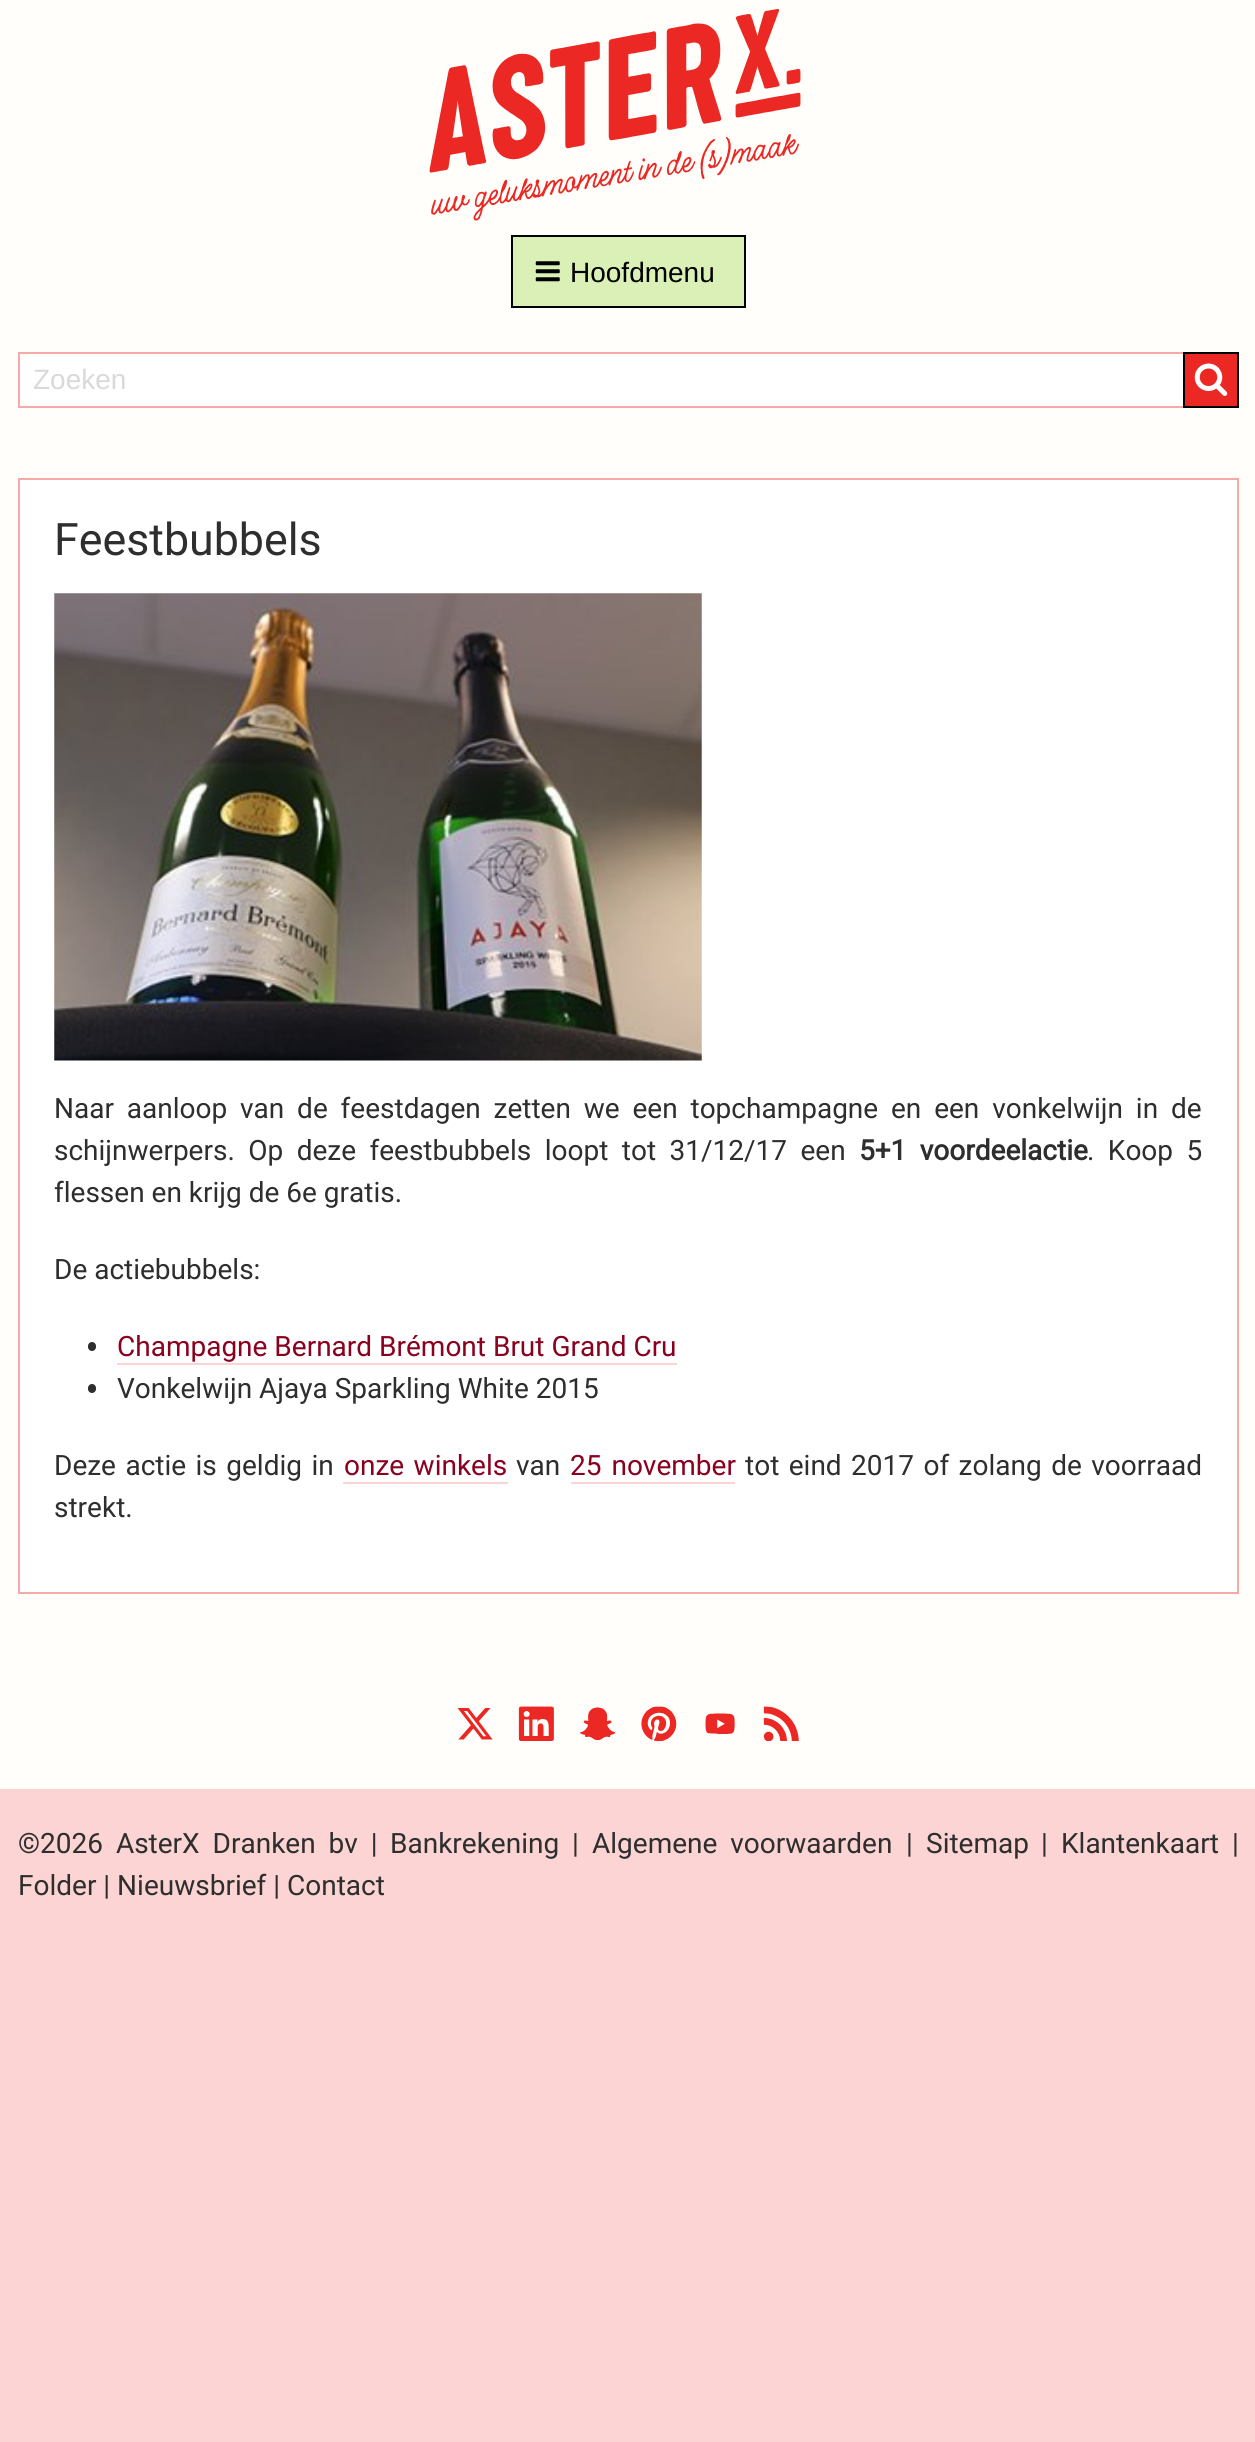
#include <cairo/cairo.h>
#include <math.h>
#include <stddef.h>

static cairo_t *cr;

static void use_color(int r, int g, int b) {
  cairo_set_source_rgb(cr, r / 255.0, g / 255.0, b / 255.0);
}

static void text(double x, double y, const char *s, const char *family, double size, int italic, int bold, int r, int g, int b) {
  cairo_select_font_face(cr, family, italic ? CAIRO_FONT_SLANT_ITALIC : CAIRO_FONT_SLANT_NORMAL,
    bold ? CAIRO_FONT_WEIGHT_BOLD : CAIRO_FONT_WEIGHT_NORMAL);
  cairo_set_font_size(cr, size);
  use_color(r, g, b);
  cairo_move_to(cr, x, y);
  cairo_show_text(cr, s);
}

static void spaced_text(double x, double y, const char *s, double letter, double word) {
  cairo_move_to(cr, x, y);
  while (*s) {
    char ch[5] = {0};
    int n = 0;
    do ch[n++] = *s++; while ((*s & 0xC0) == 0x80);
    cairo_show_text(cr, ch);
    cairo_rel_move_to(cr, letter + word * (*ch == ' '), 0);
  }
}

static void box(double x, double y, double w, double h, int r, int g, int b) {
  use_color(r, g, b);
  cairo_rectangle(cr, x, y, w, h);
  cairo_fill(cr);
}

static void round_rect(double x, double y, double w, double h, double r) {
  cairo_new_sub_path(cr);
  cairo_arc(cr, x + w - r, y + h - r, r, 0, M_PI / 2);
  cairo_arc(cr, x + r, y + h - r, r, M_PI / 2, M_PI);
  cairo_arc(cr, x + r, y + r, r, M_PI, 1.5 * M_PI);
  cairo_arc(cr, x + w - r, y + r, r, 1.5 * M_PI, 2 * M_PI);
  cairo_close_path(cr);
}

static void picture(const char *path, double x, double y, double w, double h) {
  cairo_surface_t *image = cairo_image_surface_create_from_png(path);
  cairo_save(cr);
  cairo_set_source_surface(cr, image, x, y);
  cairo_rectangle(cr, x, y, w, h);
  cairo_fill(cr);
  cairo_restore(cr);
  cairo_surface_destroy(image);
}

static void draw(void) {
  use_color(251, 212, 211);
  cairo_paint(cr);
  box(0, 0, 1255, 1789, 255, 254, 250);
  picture("img_01.png", 429, 9, 372, 212);
  use_color(219, 240, 182);
  cairo_rectangle(cr, 512, 236, 233, 71);
  cairo_fill_preserve(cr);
  use_color(0, 0, 0);
  cairo_stroke(cr);
  picture("img_02.png", 535, 261, 25, 21);
  box(20, 354, 1163, 52, 255, 255, 255);
  cairo_rectangle(cr, 19, 353, 1219, 54);
  use_color(247, 169, 167);
  cairo_stroke(cr);
  box(1185, 354, 52, 52, 235, 40, 35);
  picture("img_03.png", 1194, 363, 34, 33);
  cairo_rectangle(cr, 1184, 353, 54, 54);
  use_color(0, 0, 0);
  cairo_stroke(cr);
  use_color(255, 255, 255);
  cairo_rectangle(cr, 19, 479, 1219, 1114);
  cairo_fill_preserve(cr);
  use_color(247, 169, 167);
  cairo_stroke(cr);
  picture("img_04.png", 54, 593, 648, 468);
  use_color(46, 46, 46);
  round_rect(88, 1342, 8, 9, 4);
  cairo_fill(cr);
  box(117, 1363, 560, 2, 251, 212, 211);
  use_color(46, 46, 46);
  round_rect(88, 1384, 8, 9, 4);
  cairo_fill(cr);
  box(343, 1482, 165, 2, 251, 212, 211);
  box(571, 1482, 164, 2, 251, 212, 211);
  picture("img_05.png", 457, 1708, 36, 32);
  picture("img_06.png", 518, 1706, 36, 35);
  picture("img_07.png", 580, 1707, 36, 33);
  picture("img_08.png", 641, 1706, 36, 35);
  picture("img_09.png", 705, 1713, 30, 21);
  picture("img_10.png", 763, 1706, 36, 35);
  text(570, 282, "Hoofdmenu", "Liberation Sans", 28, 0, 0, 0, 0, 0);
  text(33, 389, "Zoeken", "Liberation Sans", 28, 0, 0, 217, 217, 217);
  text(54, 555, "Feestbubbels", "Roboto", 44.75, 0, 0, 46, 46, 46);
  cairo_set_font_size(cr, 28);
  spaced_text(54, 1118, "Naar aanloop van de feestdagen zetten we een topchampagne en een vonkelwijn in de", 0, 5.9);
  spaced_text(54, 1160, "schijnwerpers. Op deze feestbubbels loopt tot 31/12/17 een", 0, 6.5);
  cairo_select_font_face(cr, "Roboto", CAIRO_FONT_SLANT_NORMAL, CAIRO_FONT_WEIGHT_BOLD);
  spaced_text(859, 1160, "5+1 voordeelactie", 0, 6.5);
  cairo_select_font_face(cr, "Roboto", CAIRO_FONT_SLANT_NORMAL, CAIRO_FONT_WEIGHT_NORMAL);
  spaced_text(1087, 1160, ". Koop 5", 0, 6.5);
  text(54, 1202, "flessen en krijg de 6e gratis.", "Roboto", 28, 0, 0, 46, 46, 46);
  text(54, 1279, "De actiebubbels:", "Roboto", 28, 0, 0, 46, 46, 46);
  text(117, 1356, "Champagne Bernard Brémont Brut Grand Cru", "Roboto", 28, 0, 0, 138, 0, 31);
  text(117, 1398, "Vonkelwijn Ajaya Sparkling White 2015", "Roboto", 28, 0, 0, 46, 46, 46);
  spaced_text(54, 1475, "Deze actie is geldig in", 0, 2.5);
  use_color(138, 0, 31);
  spaced_text(344, 1475, "onze winkels", 0, 2.5);
  text(516, 1475, "van", "Roboto", 28, 0, 0, 46, 46, 46);
  use_color(138, 0, 31);
  spaced_text(570, 1475, "25 november", 0, 3);
  use_color(46, 46, 46);
  spaced_text(745, 1475, "tot eind 2017 of zolang de voorraad", 0, 2.5);
  text(54, 1517, "strekt.", "Roboto", 28, 0, 0, 46, 46, 46);
  spaced_text(18, 1853, "©2026 AsterX Dranken bv |", 0, 6);
  text(390, 1853, "Bankrekening", "Roboto", 28, 0, 0, 46, 46, 46);
  text(572, 1853, "|", "Roboto", 28, 0, 0, 46, 46, 46);
  spaced_text(592, 1853, "Algemene voorwaarden", 0, 6);
  text(906, 1853, "|", "Roboto", 28, 0, 0, 46, 46, 46);
  text(926, 1853, "Sitemap", "Roboto", 28, 0, 0, 46, 46, 46);
  text(1041, 1853, "|", "Roboto", 28, 0, 0, 46, 46, 46);
  text(1061, 1853, "Klantenkaart", "Roboto", 28, 0, 0, 46, 46, 46);
  text(1232, 1853, "|", "Roboto", 28, 0, 0, 46, 46, 46);
  text(18, 1895, "Folder | Nieuwsbrief | Contact", "Roboto", 28, 0, 0, 46, 46, 46);
}

int main(void) {
  cairo_surface_t *surface = cairo_image_surface_create(CAIRO_FORMAT_RGB24, 1255, 2442);
  cr = cairo_create(surface);
  cairo_font_options_t *options = cairo_font_options_create();
  cairo_font_options_set_hint_metrics(options, CAIRO_HINT_METRICS_OFF);
  cairo_font_options_set_hint_style(options, CAIRO_HINT_STYLE_NONE);
  cairo_set_font_options(cr, options);
  cairo_set_miter_limit(cr, 4);
  draw();
  cairo_surface_write_to_png(surface, "out.png");
  cairo_font_options_destroy(options);
  cairo_destroy(cr);
  cairo_surface_destroy(surface);
  return 0;
}
